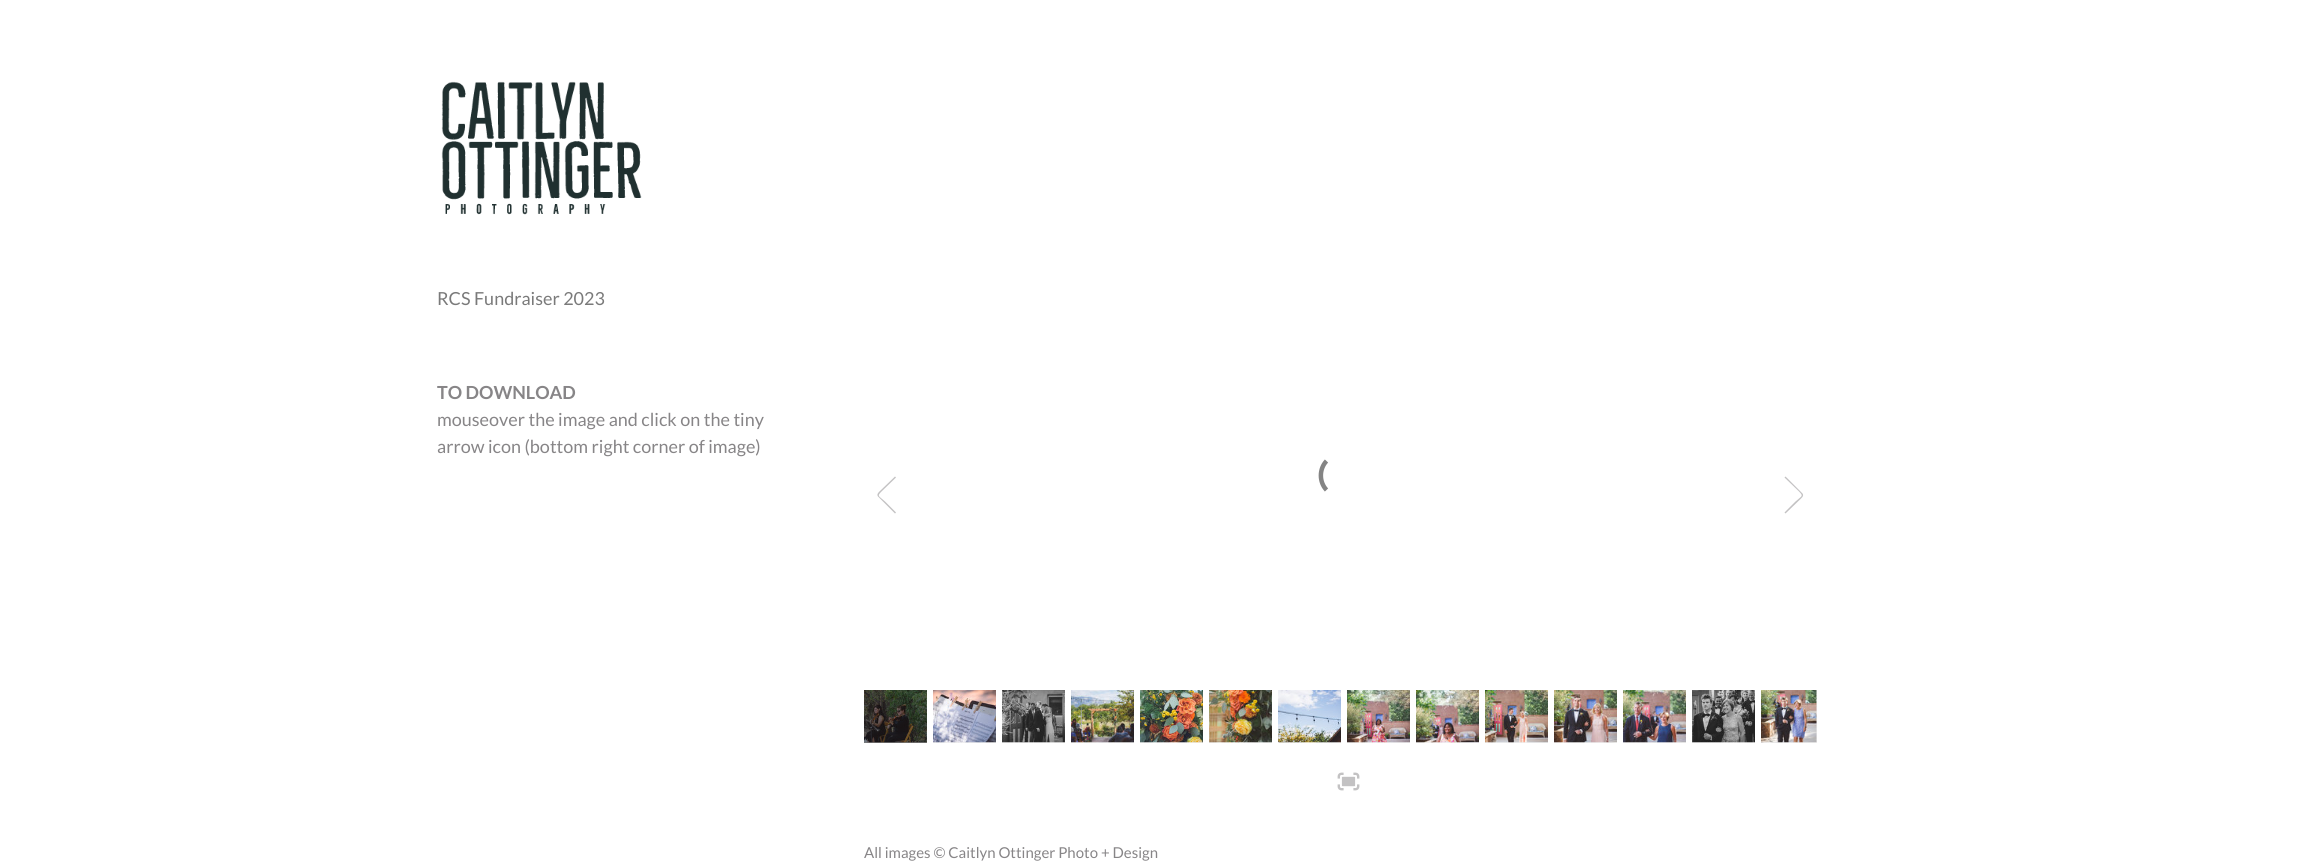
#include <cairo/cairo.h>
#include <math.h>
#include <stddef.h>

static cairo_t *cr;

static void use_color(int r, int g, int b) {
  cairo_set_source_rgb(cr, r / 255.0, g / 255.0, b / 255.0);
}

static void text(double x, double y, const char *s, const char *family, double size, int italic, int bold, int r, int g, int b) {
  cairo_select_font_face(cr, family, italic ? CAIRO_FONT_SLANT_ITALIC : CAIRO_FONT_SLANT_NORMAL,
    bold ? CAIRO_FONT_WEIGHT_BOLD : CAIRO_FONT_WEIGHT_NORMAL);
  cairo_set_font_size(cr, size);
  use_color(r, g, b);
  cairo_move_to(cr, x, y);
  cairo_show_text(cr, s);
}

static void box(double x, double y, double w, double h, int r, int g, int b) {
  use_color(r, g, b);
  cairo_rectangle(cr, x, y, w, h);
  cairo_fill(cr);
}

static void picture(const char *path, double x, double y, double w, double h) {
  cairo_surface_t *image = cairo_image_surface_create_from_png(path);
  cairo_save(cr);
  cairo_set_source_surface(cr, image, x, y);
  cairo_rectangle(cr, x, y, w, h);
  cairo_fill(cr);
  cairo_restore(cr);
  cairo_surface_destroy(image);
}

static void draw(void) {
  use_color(255, 255, 255);
  cairo_paint(cr);
  picture("img_01.png", 441, 81, 201, 134);
  cairo_new_path(cr);
  cairo_move_to(cr, 1326.5, 490);
  cairo_curve_to(cr, 1319, 482, 1319, 469, 1326.5, 461);
  use_color(132, 132, 132);
  cairo_set_line_width(cr, 4.5);
  cairo_stroke(cr);
  use_color(195, 194, 195);
  cairo_new_path(cr);
  cairo_move_to(cr, 895, 513.5);
  cairo_line_to(cr, 878, 496.5);
  cairo_curve_to(cr, 876, 494, 879.5, 491.5, 881, 490);
  cairo_line_to(cr, 895, 476.5);
  cairo_line_to(cr, 896, 477.5);
  cairo_line_to(cr, 882, 491);
  cairo_curve_to(cr, 876.5, 496.5, 878.5, 495.5, 885, 501.5);
  cairo_line_to(cr, 896, 512.5);
  cairo_close_path(cr);
  cairo_fill(cr);
  cairo_new_path(cr);
  cairo_move_to(cr, 1785.5, 476.5);
  cairo_line_to(cr, 1802.5, 493.5);
  cairo_curve_to(cr, 1804.5, 496, 1801, 498.5, 1799.5, 500);
  cairo_line_to(cr, 1785.5, 513.5);
  cairo_line_to(cr, 1784.5, 512.5);
  cairo_line_to(cr, 1795.5, 501.5);
  cairo_curve_to(cr, 1802, 495.5, 1804, 496.5, 1798.5, 491);
  cairo_line_to(cr, 1784.5, 477.5);
  cairo_close_path(cr);
  cairo_fill(cr);
  box(864, 742, 63, 1, 122, 122, 122);
  picture("img_02.png", 864, 690, 63, 53);
  box(933, 742, 63, 1, 239, 239, 239);
  picture("img_03.png", 933, 690, 63, 53);
  box(1002, 742, 63, 1, 239, 239, 239);
  picture("img_04.png", 1002, 690, 63, 53);
  box(1071, 742, 63, 1, 239, 239, 239);
  picture("img_05.png", 1071, 690, 63, 53);
  box(1140, 742, 63, 1, 239, 239, 239);
  picture("img_06.png", 1140, 690, 63, 53);
  box(1209, 742, 63, 1, 239, 239, 239);
  picture("img_07.png", 1209, 690, 63, 53);
  box(1278, 742, 63, 1, 239, 239, 239);
  picture("img_08.png", 1278, 690, 63, 53);
  box(1347, 742, 63, 1, 239, 239, 239);
  picture("img_09.png", 1347, 690, 63, 53);
  box(1416, 742, 63, 1, 239, 239, 239);
  picture("img_10.png", 1416, 690, 63, 53);
  box(1485, 742, 63, 1, 239, 239, 239);
  picture("img_11.png", 1485, 690, 63, 53);
  box(1554, 742, 63, 1, 239, 239, 239);
  picture("img_12.png", 1554, 690, 63, 53);
  box(1623, 742, 63, 1, 239, 239, 239);
  picture("img_13.png", 1623, 690, 63, 53);
  box(1692, 742, 63, 1, 239, 239, 239);
  picture("img_14.png", 1692, 690, 63, 53);
  box(1761, 690, 56, 53, 239, 239, 239);
  picture("img_15.png", 1761, 690, 56, 53);
  picture("img_16.png", 1337, 772, 23, 19);
  text(437, 305, "RCS Fundraiser 2023", "Lato", 18, 0, 0, 122, 122, 122);
  text(437, 399, "TO DOWNLOAD", "Lato", 18, 0, 1, 135, 133, 135);
  text(437, 426, "mouseover the image and click on the tiny", "Lato", 18, 0, 0, 135, 133, 135);
  text(437, 453, "arrow icon (bottom right corner of image)", "Lato", 18, 0, 0, 135, 133, 135);
  text(864, 858, "All images © Caitlyn Ottinger Photo + Design", "Lato", 15, 0, 0, 135, 133, 135);
}

int main(void) {
  cairo_surface_t *surface = cairo_image_surface_create(CAIRO_FORMAT_RGB24, 2298, 866);
  cr = cairo_create(surface);
  cairo_font_options_t *options = cairo_font_options_create();
  cairo_font_options_set_hint_metrics(options, CAIRO_HINT_METRICS_OFF);
  cairo_font_options_set_hint_style(options, CAIRO_HINT_STYLE_NONE);
  cairo_set_font_options(cr, options);
  cairo_set_miter_limit(cr, 4);
  draw();
  cairo_surface_write_to_png(surface, "out.png");
  cairo_font_options_destroy(options);
  cairo_destroy(cr);
  cairo_surface_destroy(surface);
  return 0;
}
